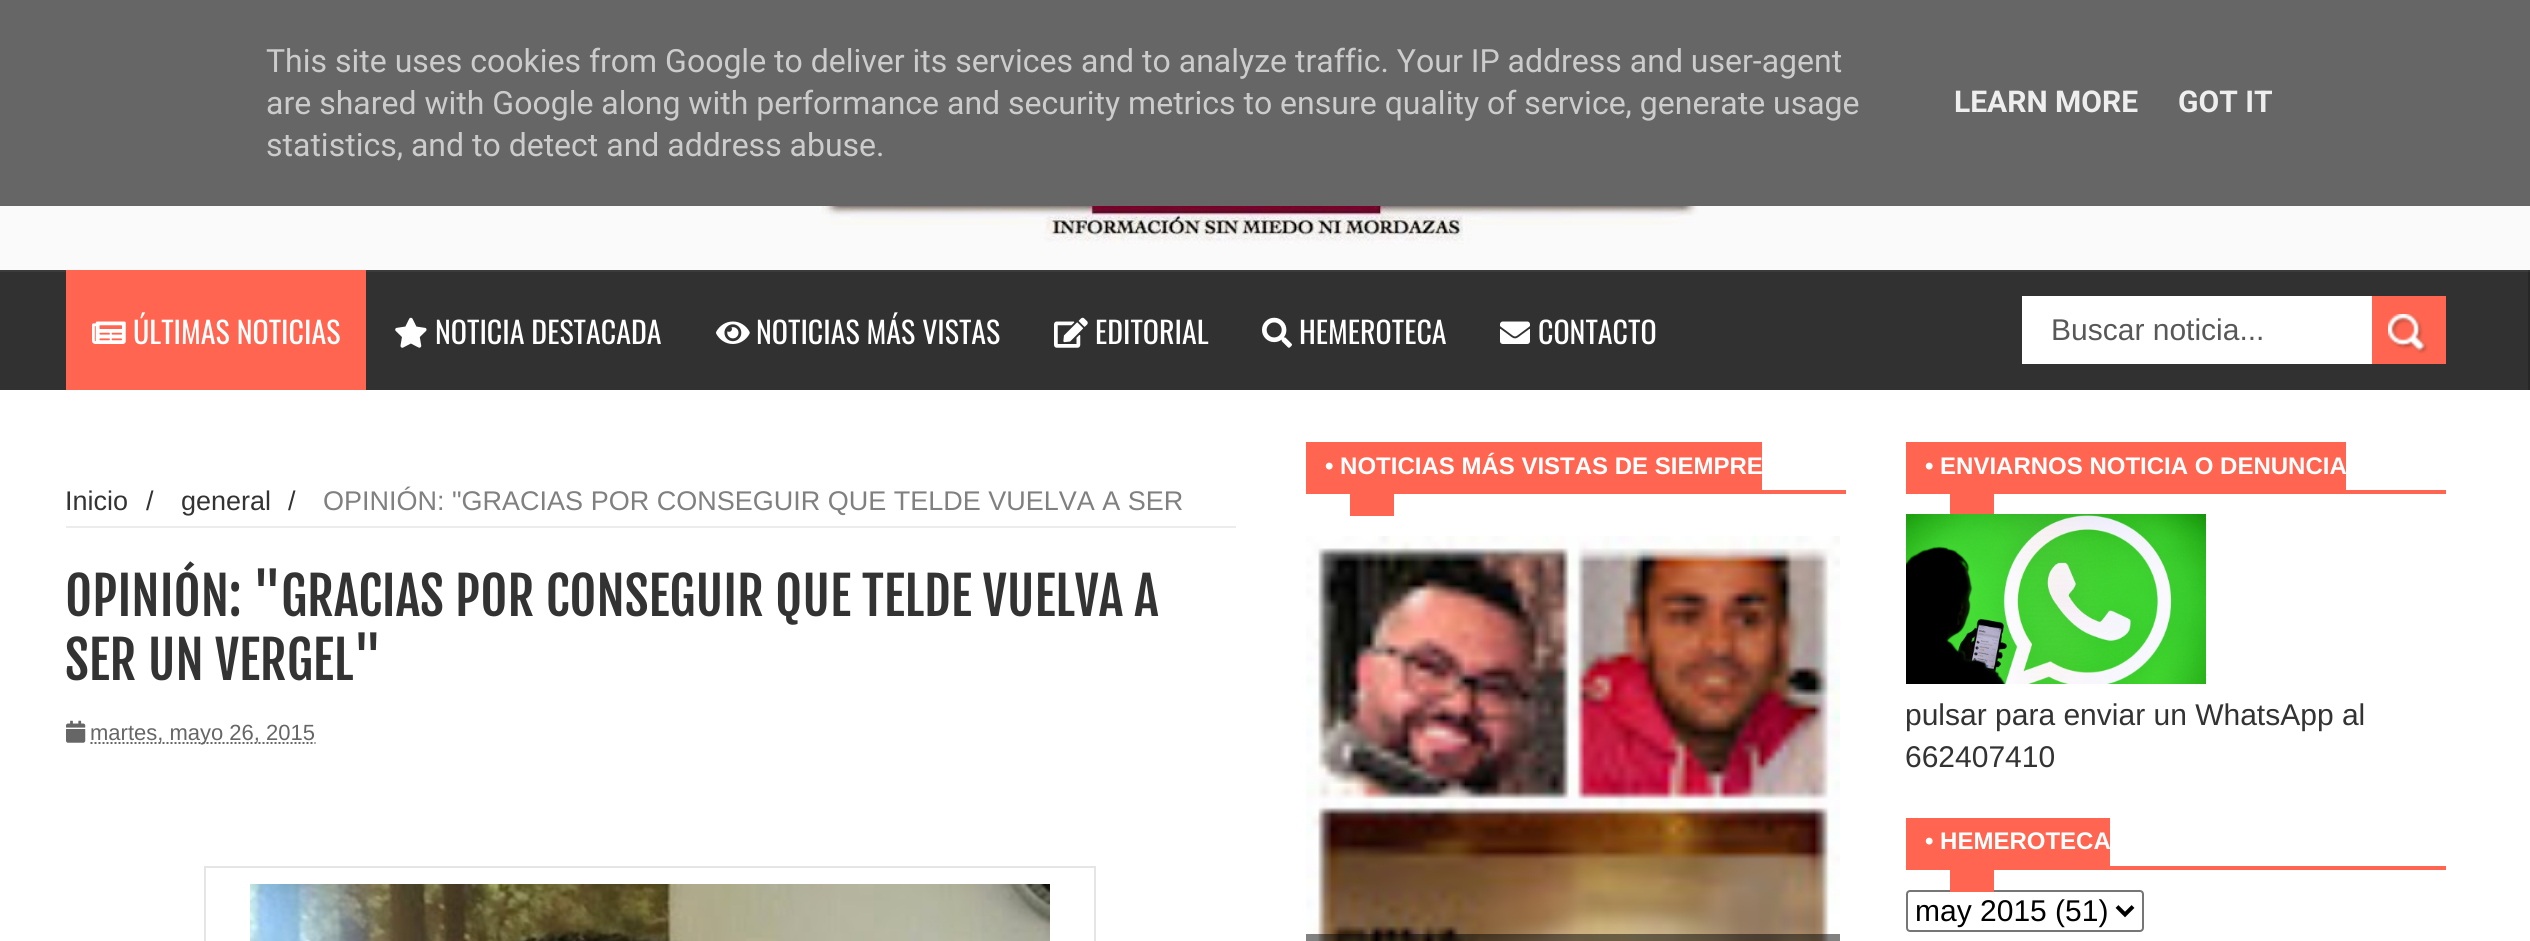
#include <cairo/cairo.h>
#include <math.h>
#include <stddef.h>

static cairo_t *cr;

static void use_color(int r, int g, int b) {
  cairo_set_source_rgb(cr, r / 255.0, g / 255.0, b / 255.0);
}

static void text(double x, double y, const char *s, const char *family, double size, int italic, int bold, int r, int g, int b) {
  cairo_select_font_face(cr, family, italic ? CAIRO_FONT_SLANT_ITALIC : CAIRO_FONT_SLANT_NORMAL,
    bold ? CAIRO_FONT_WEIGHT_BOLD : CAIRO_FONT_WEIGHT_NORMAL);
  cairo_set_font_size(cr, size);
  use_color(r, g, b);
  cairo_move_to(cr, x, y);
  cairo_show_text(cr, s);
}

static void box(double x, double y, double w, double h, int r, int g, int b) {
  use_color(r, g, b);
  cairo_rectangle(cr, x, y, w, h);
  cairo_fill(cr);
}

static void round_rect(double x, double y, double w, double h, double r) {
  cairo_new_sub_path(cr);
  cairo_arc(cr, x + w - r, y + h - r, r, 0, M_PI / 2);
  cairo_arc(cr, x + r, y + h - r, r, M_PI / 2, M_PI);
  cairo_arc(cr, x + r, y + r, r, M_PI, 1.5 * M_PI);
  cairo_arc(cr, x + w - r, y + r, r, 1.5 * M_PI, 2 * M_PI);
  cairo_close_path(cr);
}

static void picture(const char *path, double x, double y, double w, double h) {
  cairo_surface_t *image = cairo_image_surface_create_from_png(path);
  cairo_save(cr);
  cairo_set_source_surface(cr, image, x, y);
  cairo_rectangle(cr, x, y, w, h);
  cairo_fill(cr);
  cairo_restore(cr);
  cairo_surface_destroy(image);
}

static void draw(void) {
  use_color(255, 255, 255);
  cairo_paint(cr);
  box(0, 0, 2530, 206, 102, 102, 102);
  box(0, 206, 2530, 64, 250, 250, 250);
  picture("img_01.png", 810, 206, 890, 38);
  box(0, 272, 2528, 118, 49, 49, 49);
  box(0, 270, 2530, 2, 59, 59, 59);
  box(2528, 270, 2, 120, 39, 39, 39);
  box(2528, 270, 2, 2, 50, 50, 50);
  box(66, 270, 300, 120, 255, 101, 80);
  picture("img_02.png", 92, 321, 34, 23);
  picture("img_03.png", 395, 317, 32, 31);
  picture("img_04.png", 716, 321, 34, 23);
  picture("img_05.png", 1054, 317, 34, 31);
  picture("img_06.png", 1262, 317, 30, 31);
  picture("img_07.png", 1500, 321, 30, 23);
  box(2022, 296, 350, 68, 255, 255, 255);
  box(2372, 296, 74, 68, 255, 101, 80);
  picture("img_08.png", 2388, 314, 40, 40);
  box(1762, 490, 84, 4, 255, 101, 80);
  box(1306, 442, 456, 52, 255, 101, 80);
  box(1350, 494, 44, 22, 255, 101, 80);
  picture("img_09.png", 1306, 536, 534, 405);
  cairo_set_source_rgba(cr, 0, 0, 0, 0.49);
  cairo_rectangle(cr, 1306, 934, 534, 7);
  cairo_fill(cr);
  box(66, 526, 1170, 2, 236, 236, 236);
  picture("img_10.png", 66, 720, 20, 23);
  cairo_new_path(cr);
  cairo_move_to(cr, 90.5, 743);
  cairo_line_to(cr, 315.5, 743);
  use_color(102, 102, 102);
  cairo_set_dash(cr, (double[]){2, 2}, 2, 0);
  cairo_stroke(cr);
  box(204, 866, 892, 2, 229, 229, 229);
  box(1094, 866, 2, 75, 229, 229, 229);
  box(204, 866, 2, 75, 229, 229, 229);
  picture("img_11.png", 250, 884, 800, 57);
  box(2346, 490, 100, 4, 255, 101, 80);
  box(1906, 442, 440, 52, 255, 101, 80);
  box(1950, 494, 44, 20, 255, 101, 80);
  picture("img_12.png", 1906, 514, 300, 170);
  box(2110, 866, 336, 4, 255, 101, 80);
  box(1906, 818, 204, 52, 255, 101, 80);
  round_rect(1907, 891, 236, 40, 3);
  use_color(118, 118, 118);
  cairo_set_dash(cr, NULL, 0, 0);
  cairo_stroke(cr);
  box(1950, 870, 44, 22, 255, 101, 80);
  cairo_new_path(cr);
  cairo_move_to(cr, 2117, 906.5);
  cairo_line_to(cr, 2125, 914.5);
  cairo_line_to(cr, 2133, 906.5);
  use_color(0, 0, 0);
  cairo_set_line_width(cr, 4);
  cairo_stroke(cr);
  text(266, 72, "This site uses cookies from Google to deliver its services and to analyze traffic. Your IP address and user-agent", "Roboto", 32, 0, 0, 204, 204, 204);
  text(266, 114, "are shared with Google along with performance and security metrics to ensure quality of service, generate usage", "Roboto", 32, 0, 0, 204, 204, 204);
  text(266, 156, "statistics, and to detect and address abuse.", "Roboto", 32, 0, 0, 204, 204, 204);
  text(1954, 112, "LEARN MORE", "Roboto", 30, 0, 1, 238, 238, 238);
  text(2178, 112, "GOT IT", "Roboto", 30, 0, 1, 238, 238, 238);
  text(133, 344, "ÚLTIMAS NOTICIAS", "Oswald", 30, 0, 0, 255, 255, 255);
  text(435, 344, "NOTICIA DESTACADA", "Oswald", 30, 0, 0, 255, 255, 255);
  text(756, 344, "NOTICIAS MÁS VISTAS", "Oswald", 30, 0, 0, 255, 255, 255);
  text(1095, 344, "EDITORIAL", "Oswald", 30, 0, 0, 255, 255, 255);
  text(1299, 344, "HEMEROTECA", "Oswald", 30, 0, 0, 255, 255, 255);
  text(1538, 344, "CONTACTO", "Oswald", 30, 0, 0, 255, 255, 255);
  text(2051, 340, "Buscar noticia...", "Liberation Sans", 30, 0, 0, 88, 88, 88);
  text(1325, 474, "• NOTICIAS MÁS VISTAS DE SIEMPRE", "Liberation Sans", 24, 0, 1, 255, 255, 255);
  text(65, 510, "Inicio", "Liberation Sans", 27, 0, 0, 51, 51, 51);
  text(146, 510, "/", "Liberation Sans", 27, 0, 0, 51, 51, 51);
  text(181, 510, "general", "Liberation Sans", 27, 0, 0, 51, 51, 51);
  text(288, 510, "/", "Liberation Sans", 27, 0, 0, 51, 51, 51);
  text(323, 510, "OPINIÓN: \"GRACIAS POR CONSEGUIR QUE TELDE VUELVA A SER", "Liberation Sans", 27, 0, 0, 128, 128, 128);
  text(65, 616, "OPINIÓN: \"GRACIAS POR CONSEGUIR QUE TELDE VUELVA A", "Fjalla One", 52, 0, 0, 51, 51, 51);
  text(65, 680, "SER UN VERGEL\"", "Fjalla One", 52, 0, 0, 51, 51, 51);
  text(90, 740, "martes, mayo 26, 2015", "Liberation Sans", 22, 0, 0, 102, 102, 102);
  text(1925, 474, "• ENVIARNOS NOTICIA O DENUNCIA", "Liberation Sans", 24, 0, 1, 255, 255, 255);
  text(1905, 725, "pulsar para enviar un WhatsApp al", "Liberation Sans", 30, 0, 0, 51, 51, 51);
  text(1905, 767, "662407410", "Liberation Sans", 30, 0, 0, 51, 51, 51);
  text(1925, 849, "• HEMEROTECA", "Liberation Sans", 24, 0, 1, 255, 255, 255);
  text(1915, 921, "may 2015 (51)", "Liberation Sans", 30, 0, 0, 0, 0, 0);
}

int main(void) {
  cairo_surface_t *surface = cairo_image_surface_create(CAIRO_FORMAT_RGB24, 2530, 941);
  cr = cairo_create(surface);
  cairo_font_options_t *options = cairo_font_options_create();
  cairo_font_options_set_hint_metrics(options, CAIRO_HINT_METRICS_OFF);
  cairo_font_options_set_hint_style(options, CAIRO_HINT_STYLE_NONE);
  cairo_set_font_options(cr, options);
  cairo_set_miter_limit(cr, 4);
  draw();
  cairo_surface_write_to_png(surface, "out.png");
  cairo_font_options_destroy(options);
  cairo_destroy(cr);
  cairo_surface_destroy(surface);
  return 0;
}
